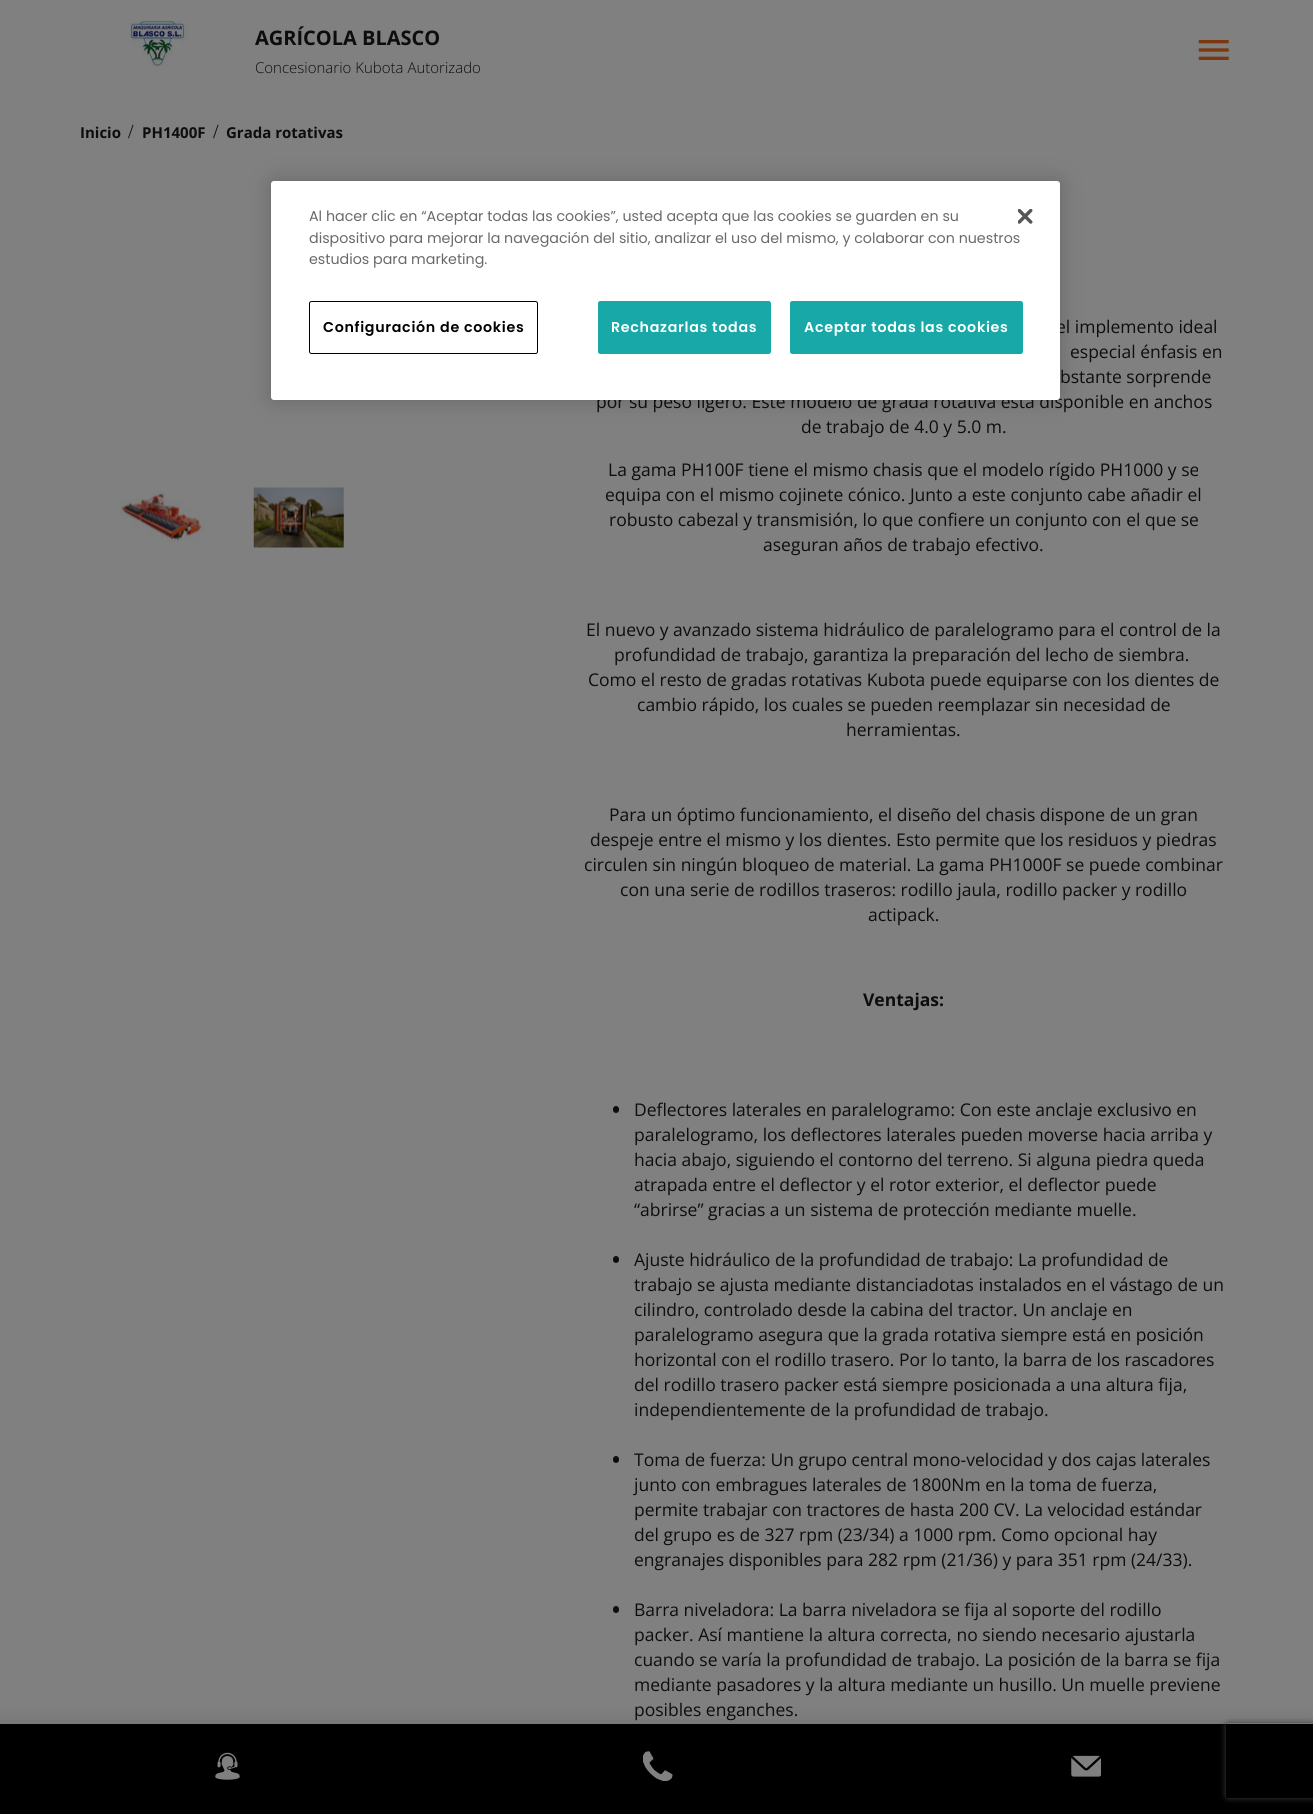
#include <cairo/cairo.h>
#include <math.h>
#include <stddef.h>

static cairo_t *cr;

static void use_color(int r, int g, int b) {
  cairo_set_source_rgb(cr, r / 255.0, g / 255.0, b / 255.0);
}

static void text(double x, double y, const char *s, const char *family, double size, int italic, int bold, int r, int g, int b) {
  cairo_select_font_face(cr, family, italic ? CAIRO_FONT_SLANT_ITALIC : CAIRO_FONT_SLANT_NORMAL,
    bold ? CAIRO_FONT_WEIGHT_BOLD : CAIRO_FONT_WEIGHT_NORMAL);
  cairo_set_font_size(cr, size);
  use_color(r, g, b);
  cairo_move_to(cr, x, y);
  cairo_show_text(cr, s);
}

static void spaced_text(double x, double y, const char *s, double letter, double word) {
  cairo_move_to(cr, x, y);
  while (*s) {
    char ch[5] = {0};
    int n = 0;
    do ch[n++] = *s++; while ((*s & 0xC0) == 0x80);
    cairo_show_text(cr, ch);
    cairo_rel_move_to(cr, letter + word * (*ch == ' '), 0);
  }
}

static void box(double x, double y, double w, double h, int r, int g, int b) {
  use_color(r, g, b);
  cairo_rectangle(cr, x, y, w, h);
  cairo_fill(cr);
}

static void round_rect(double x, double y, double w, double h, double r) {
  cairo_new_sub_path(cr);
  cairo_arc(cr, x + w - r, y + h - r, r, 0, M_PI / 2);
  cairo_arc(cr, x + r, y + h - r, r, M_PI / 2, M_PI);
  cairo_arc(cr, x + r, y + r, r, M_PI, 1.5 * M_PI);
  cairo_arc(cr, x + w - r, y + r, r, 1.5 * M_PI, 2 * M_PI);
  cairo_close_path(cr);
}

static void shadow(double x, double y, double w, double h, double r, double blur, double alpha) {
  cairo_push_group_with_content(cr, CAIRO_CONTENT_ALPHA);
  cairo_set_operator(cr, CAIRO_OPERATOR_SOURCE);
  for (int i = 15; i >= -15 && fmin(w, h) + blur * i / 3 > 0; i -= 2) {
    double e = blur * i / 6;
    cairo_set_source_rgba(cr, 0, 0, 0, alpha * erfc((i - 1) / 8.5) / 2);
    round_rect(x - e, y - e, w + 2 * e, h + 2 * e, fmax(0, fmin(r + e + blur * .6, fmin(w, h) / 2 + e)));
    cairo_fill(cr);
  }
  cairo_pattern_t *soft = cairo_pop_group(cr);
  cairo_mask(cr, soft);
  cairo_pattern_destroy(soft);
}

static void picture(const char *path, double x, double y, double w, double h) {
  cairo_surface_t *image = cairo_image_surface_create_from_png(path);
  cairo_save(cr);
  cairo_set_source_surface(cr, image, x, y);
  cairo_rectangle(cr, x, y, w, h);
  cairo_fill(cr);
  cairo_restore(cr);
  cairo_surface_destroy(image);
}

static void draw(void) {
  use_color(128, 128, 128);
  cairo_paint(cr);
  picture("img_01.png", 129, 20, 60, 47);
  picture("img_02.png", 1198, 40, 31, 20);
  use_color(0, 0, 0);
  shadow(271, 181, 789, 219, 3, 11, 0.2);
  picture("img_04.png", 120, 491, 85, 52);
  picture("img_05.png", 253, 487, 91, 61);
  use_color(13, 13, 12);
  round_rect(613, 1106, 6, 7, 3);
  cairo_fill(cr);
  round_rect(613, 1256, 6, 7, 3);
  cairo_fill(cr);
  round_rect(613, 1456, 6, 7, 3);
  cairo_fill(cr);
  round_rect(613, 1606, 6, 7, 3);
  cairo_fill(cr);
  use_color(13, 13, 12);
  shadow(0, 1724, 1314, 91, 0, 10, 0.16);
  box(0, 1724, 1313, 90, 0, 0, 0);
  picture("img_06.png", 215, 1752, 25, 28);
  picture("img_07.png", 643, 1751, 30, 30);
  picture("img_08.png", 1071, 1755, 30, 22);
  cairo_save(cr);
  cairo_set_fill_rule(cr, CAIRO_FILL_RULE_EVEN_ODD);
  cairo_new_path(cr);
  cairo_move_to(cr, 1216, 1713);
  cairo_line_to(cr, 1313, 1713);
  cairo_line_to(cr, 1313, 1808);
  cairo_line_to(cr, 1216, 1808);
  cairo_close_path(cr);
  cairo_move_to(cr, 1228.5, 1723);
  cairo_line_to(cr, 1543.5, 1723);
  cairo_curve_to(cr, 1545, 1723, 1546, 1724, 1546, 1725.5);
  cairo_line_to(cr, 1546, 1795.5);
  cairo_curve_to(cr, 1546, 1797, 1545, 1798, 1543.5, 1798);
  cairo_line_to(cr, 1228.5, 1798);
  cairo_curve_to(cr, 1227, 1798, 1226, 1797, 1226, 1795.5);
  cairo_line_to(cr, 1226, 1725.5);
  cairo_curve_to(cr, 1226, 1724, 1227, 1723, 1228.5, 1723);
  cairo_close_path(cr);
  cairo_clip(cr);
  use_color(64, 64, 64);
  shadow(1226, 1723, 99, 75, 2.5, 3, 1);
  cairo_restore(cr);
  text(255, 45, "AGRÍCOLA BLASCO", "Open Sans", 20, 0, 1, 13, 13, 12);
  text(255, 73, "Concesionario Kubota Autorizado", "Open Sans Light", 15, 0, 0, 13, 13, 12);
  text(80, 138, "Inicio", "Open Sans", 15, 0, 1, 13, 13, 12);
  text(128, 138, "/", "Liberation Serif", 20, 0, 0, 13, 13, 12);
  text(142, 138, "PH1400F", "Open Sans", 15, 0, 1, 13, 13, 12);
  text(213, 138, "/", "Liberation Serif", 20, 0, 0, 13, 13, 12);
  text(226, 138, "Grada rotativas", "Open Sans", 15, 0, 1, 13, 13, 12);
  text(1056, 333, "el implemento ideal", "Open Sans", 17.5, 0, 0, 13, 13, 12);
  text(1070, 358, "especial énfasis en", "Open Sans", 17.5, 0, 0, 13, 13, 12);
  text(1060, 383, "bstante sorprende", "Open Sans", 17.5, 0, 0, 13, 13, 12);
  text(596, 408, "por su peso ligero. Este modelo de grada rotativa está disponible en anchos", "Open Sans", 17.5, 0, 0, 13, 13, 12);
  use_color(255, 255, 255);
  round_rect(271, 181, 789, 219, 3);
  cairo_fill(cr);
  picture("img_03.png", 1018, 209, 15, 15);
  round_rect(309.5, 301.5, 228, 52, 2);
  use_color(0, 0, 0);
  cairo_set_line_width(cr, 1);
  cairo_stroke(cr);
  cairo_select_font_face(cr, "Poppins SemiBold", CAIRO_FONT_SLANT_NORMAL, CAIRO_FONT_WEIGHT_NORMAL);
  cairo_set_font_size(cr, 14.25);
  spaced_text(323, 332, "Configuración de cookies", 0.7, 0);
  use_color(25, 168, 168);
  round_rect(790.5, 301.5, 232, 52, 2);
  cairo_fill_preserve(cr);
  cairo_stroke(cr);
  use_color(255, 255, 255);
  spaced_text(804, 332, "Aceptar todas las cookies", 0.7, 0);
  use_color(25, 168, 168);
  round_rect(598.5, 301.5, 172, 52, 2);
  cairo_fill_preserve(cr);
  cairo_stroke(cr);
  use_color(255, 255, 255);
  spaced_text(611, 332, "Rechazarlas todas", 0.7, 0);
  text(309, 264, "estudios para marketing.", "Poppins", 14.25, 0, 0, 105, 105, 105);
  text(309, 243, "dispositivo para mejorar la navegación del sitio, analizar el uso del mismo, y colaborar con nuestros", "Poppins", 14.25, 0, 0, 105, 105, 105);
  text(309, 221, "Al hacer clic en “Aceptar todas las cookies”, usted acepta que las cookies se guarden en su", "Poppins", 14.25, 0, 0, 105, 105, 105);
  text(801, 433, "de trabajo de 4.0 y 5.0 m.", "Open Sans", 17.5, 0, 0, 13, 13, 12);
  text(608, 476, "La gama PH100F tiene el mismo chasis que el modelo rígido PH1000 y se", "Open Sans", 17.5, 0, 0, 13, 13, 12);
  text(605, 501, "equipa con el mismo cojinete cónico. Junto a este conjunto cabe añadir el", "Open Sans", 17.5, 0, 0, 13, 13, 12);
  text(609, 526, "robusto cabezal y transmisión, lo que confiere un conjunto con el que se", "Open Sans", 17.5, 0, 0, 13, 13, 12);
  text(763, 551, "aseguran años de trabajo efectivo.", "Open Sans", 17.5, 0, 0, 13, 13, 12);
  text(586, 636, "El nuevo y avanzado sistema hidráulico de paralelogramo para el control de la", "Open Sans", 17.5, 0, 0, 13, 13, 12);
  text(614, 661, "profundidad de trabajo, garantiza la preparación del lecho de siembra.", "Open Sans", 17.5, 0, 0, 13, 13, 12);
  text(588, 686, "Como el resto de gradas rotativas Kubota puede equiparse con los dientes de", "Open Sans", 17.5, 0, 0, 13, 13, 12);
  text(637, 711, "cambio rápido, los cuales se pueden reemplazar sin necesidad de", "Open Sans", 17.5, 0, 0, 13, 13, 12);
  text(846, 736, "herramientas.", "Open Sans", 17.5, 0, 0, 13, 13, 12);
  text(609, 821, "Para un óptimo funcionamiento, el diseño del chasis dispone de un gran", "Open Sans", 17.5, 0, 0, 13, 13, 12);
  text(590, 846, "despeje entre el mismo y los dientes. Esto permite que los residuos y piedras", "Open Sans", 17.5, 0, 0, 13, 13, 12);
  text(584, 871, "circulen sin ningún bloqueo de material. La gama PH1000F se puede combinar", "Open Sans", 17.5, 0, 0, 13, 13, 12);
  text(620, 896, "con una serie de rodillos traseros: rodillo jaula, rodillo packer y rodillo", "Open Sans", 17.5, 0, 0, 13, 13, 12);
  text(868, 921, "actipack.", "Open Sans", 17.5, 0, 0, 13, 13, 12);
  text(863, 1006, "Ventajas:", "Open Sans", 17.5, 0, 1, 13, 13, 12);
  text(634, 1116, "Deflectores laterales en paralelogramo: Con este anclaje exclusivo en", "Open Sans", 17.5, 0, 0, 13, 13, 12);
  text(634, 1141, "paralelogramo, los deflectores laterales pueden moverse hacia arriba y", "Open Sans", 17.5, 0, 0, 13, 13, 12);
  text(634, 1166, "hacia abajo, siguiendo el contorno del terreno. Si alguna piedra queda", "Open Sans", 17.5, 0, 0, 13, 13, 12);
  text(634, 1191, "atrapada entre el deflector y el rotor exterior, el deflector puede", "Open Sans", 17.5, 0, 0, 13, 13, 12);
  text(634, 1216, "“abrirse” gracias a un sistema de protección mediante muelle.", "Open Sans", 17.5, 0, 0, 13, 13, 12);
  text(634, 1266, "Ajuste hidráulico de la profundidad de trabajo: La profundidad de", "Open Sans", 17.5, 0, 0, 13, 13, 12);
  text(634, 1291, "trabajo se ajusta mediante distanciadotas instalados en el vástago de un", "Open Sans", 17.5, 0, 0, 13, 13, 12);
  text(634, 1316, "cilindro, controlado desde la cabina del tractor. Un anclaje en", "Open Sans", 17.5, 0, 0, 13, 13, 12);
  text(634, 1341, "paralelogramo asegura que la grada rotativa siempre está en posición", "Open Sans", 17.5, 0, 0, 13, 13, 12);
  text(634, 1366, "horizontal con el rodillo trasero. Por lo tanto, la barra de los rascadores", "Open Sans", 17.5, 0, 0, 13, 13, 12);
  text(634, 1391, "del rodillo trasero packer está siempre posicionada a una altura fija,", "Open Sans", 17.5, 0, 0, 13, 13, 12);
  text(634, 1416, "independientemente de la profundidad de trabajo.", "Open Sans", 17.5, 0, 0, 13, 13, 12);
  text(634, 1466, "Toma de fuerza: Un grupo central mono-velocidad y dos cajas laterales", "Open Sans", 17.5, 0, 0, 13, 13, 12);
  text(634, 1491, "junto con embragues laterales de 1800Nm en la toma de fuerza,", "Open Sans", 17.5, 0, 0, 13, 13, 12);
  text(634, 1516, "permite trabajar con tractores de hasta 200 CV. La velocidad estándar", "Open Sans", 17.5, 0, 0, 13, 13, 12);
  text(634, 1541, "del grupo es de 327 rpm (23/34) a 1000 rpm. Como opcional hay", "Open Sans", 17.5, 0, 0, 13, 13, 12);
  text(634, 1566, "engranajes disponibles para 282 rpm (21/36) y para 351 rpm (24/33).", "Open Sans", 17.5, 0, 0, 13, 13, 12);
  text(634, 1616, "Barra niveladora: La barra niveladora se fija al soporte del rodillo", "Open Sans", 17.5, 0, 0, 13, 13, 12);
  text(634, 1641, "packer. Así mantiene la altura correcta, no siendo necesario ajustarla", "Open Sans", 17.5, 0, 0, 13, 13, 12);
  text(634, 1666, "cuando se varía la profundidad de trabajo. La posición de la barra se fija", "Open Sans", 17.5, 0, 0, 13, 13, 12);
  text(634, 1691, "mediante pasadores y la altura mediante un husillo. Un muelle previene", "Open Sans", 17.5, 0, 0, 13, 13, 12);
  text(634, 1716, "posibles enganches.", "Open Sans", 17.5, 0, 0, 13, 13, 12);
}

int main(void) {
  cairo_surface_t *surface = cairo_image_surface_create(CAIRO_FORMAT_RGB24, 1313, 1814);
  cr = cairo_create(surface);
  cairo_font_options_t *options = cairo_font_options_create();
  cairo_font_options_set_hint_metrics(options, CAIRO_HINT_METRICS_OFF);
  cairo_font_options_set_hint_style(options, CAIRO_HINT_STYLE_NONE);
  cairo_set_font_options(cr, options);
  cairo_set_miter_limit(cr, 4);
  draw();
  cairo_surface_write_to_png(surface, "out.png");
  cairo_font_options_destroy(options);
  cairo_destroy(cr);
  cairo_surface_destroy(surface);
  return 0;
}
